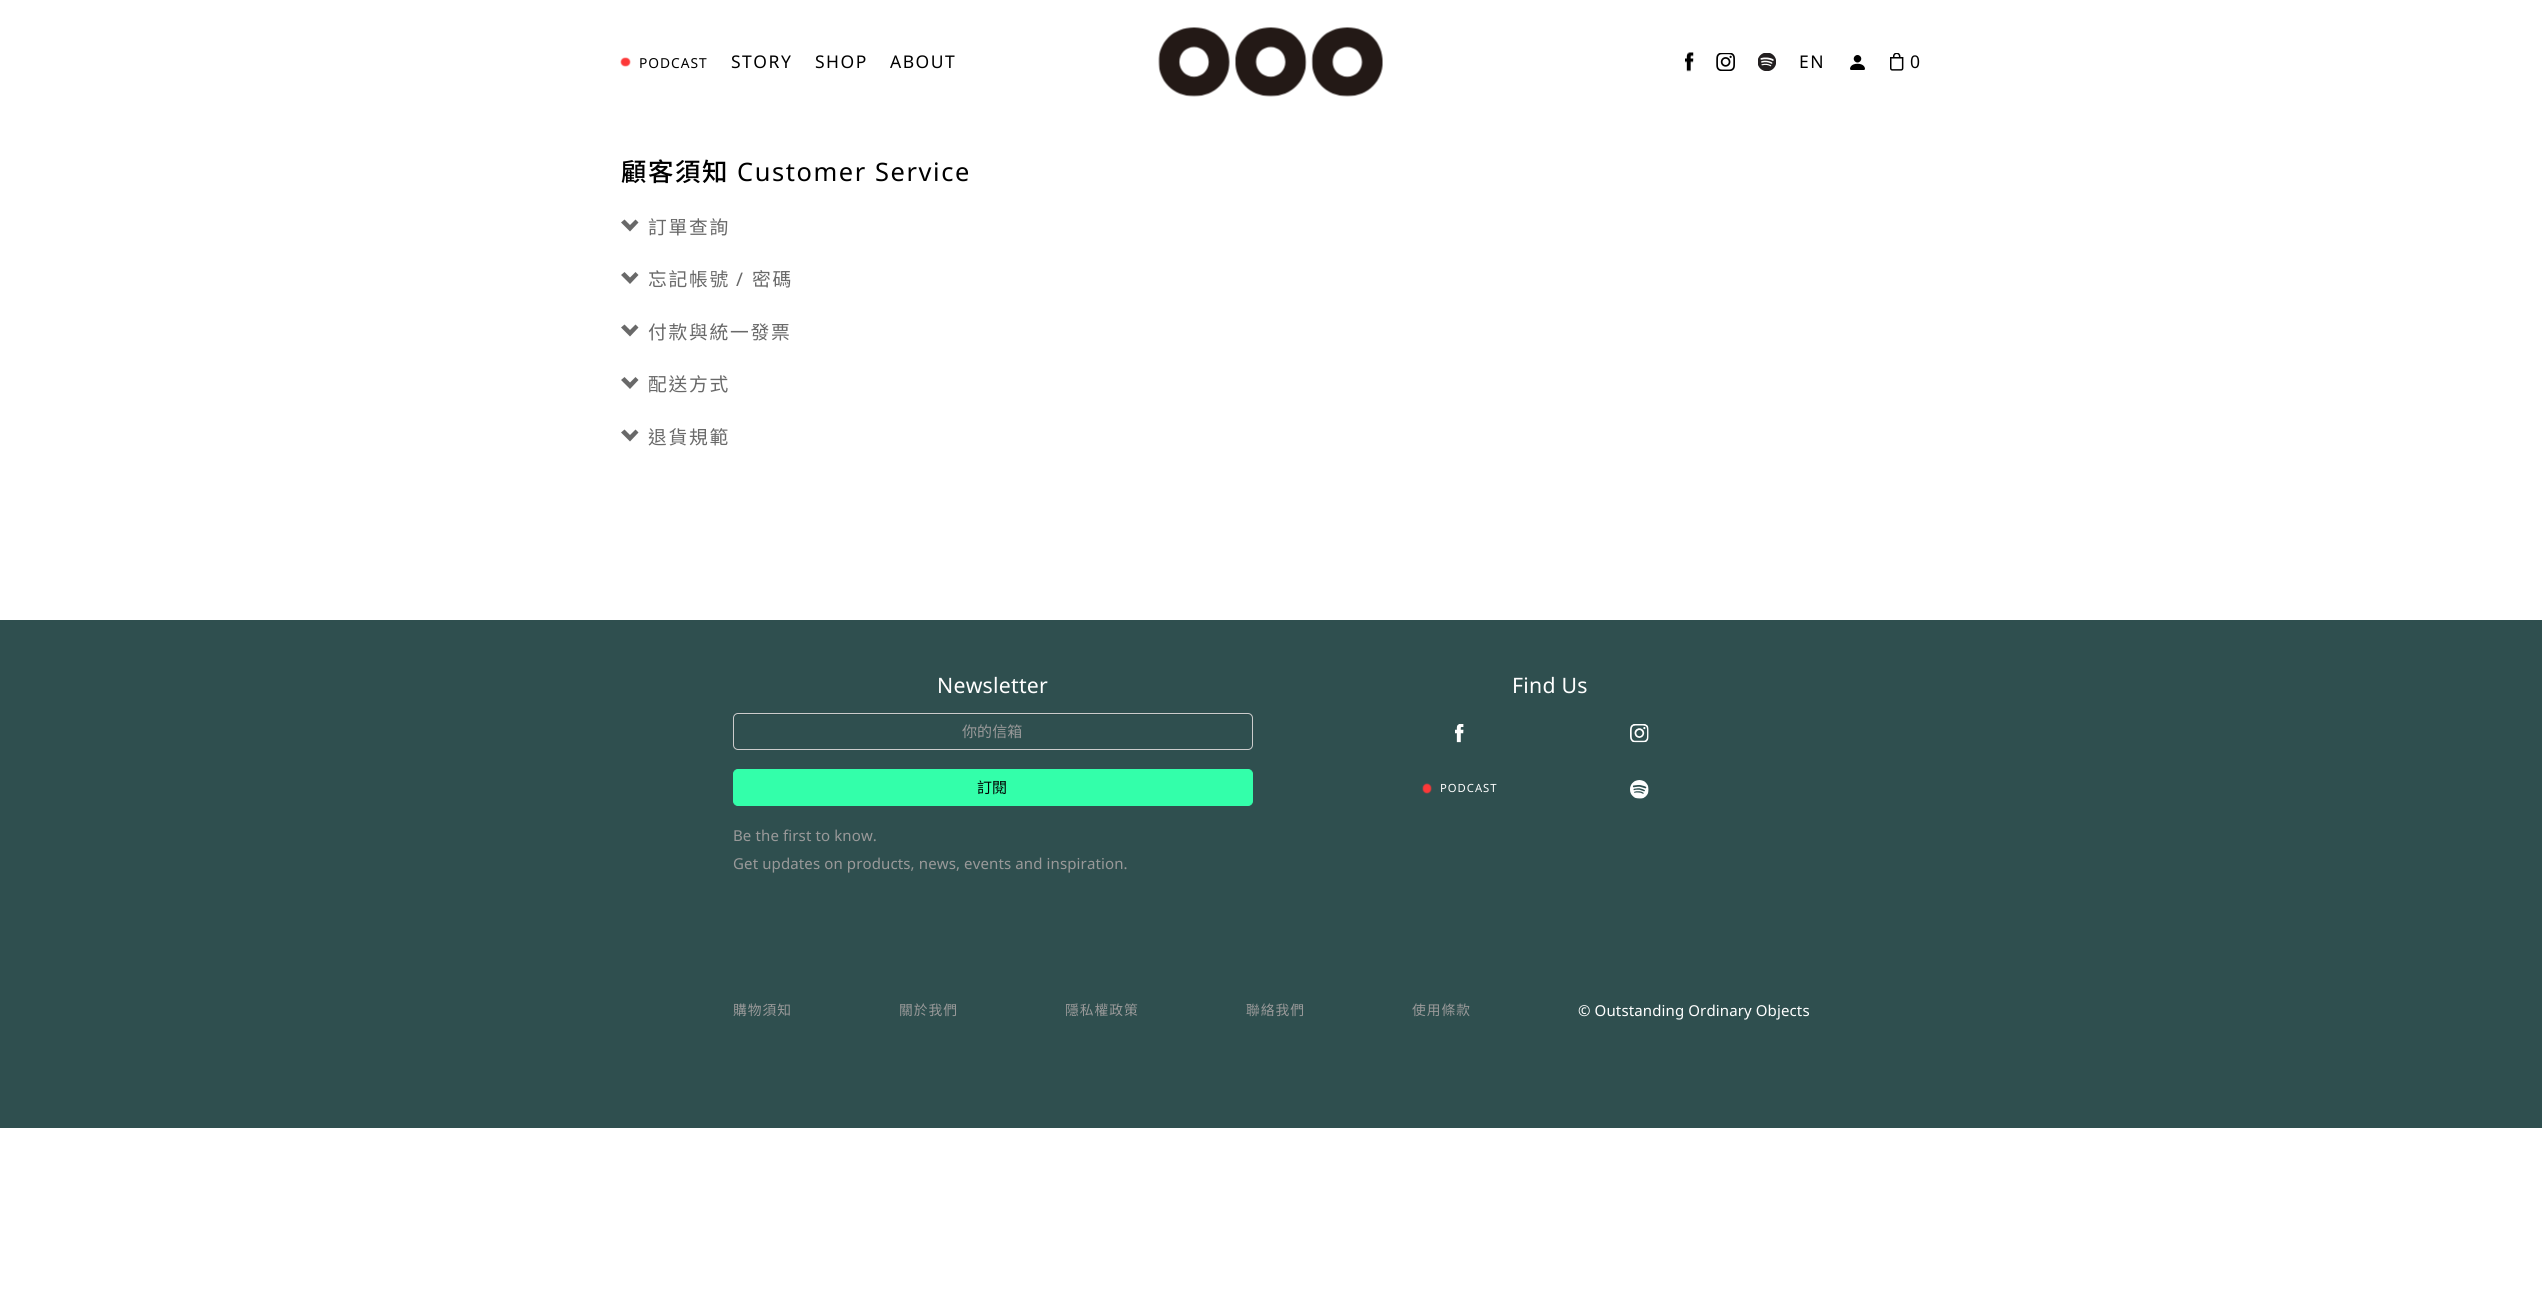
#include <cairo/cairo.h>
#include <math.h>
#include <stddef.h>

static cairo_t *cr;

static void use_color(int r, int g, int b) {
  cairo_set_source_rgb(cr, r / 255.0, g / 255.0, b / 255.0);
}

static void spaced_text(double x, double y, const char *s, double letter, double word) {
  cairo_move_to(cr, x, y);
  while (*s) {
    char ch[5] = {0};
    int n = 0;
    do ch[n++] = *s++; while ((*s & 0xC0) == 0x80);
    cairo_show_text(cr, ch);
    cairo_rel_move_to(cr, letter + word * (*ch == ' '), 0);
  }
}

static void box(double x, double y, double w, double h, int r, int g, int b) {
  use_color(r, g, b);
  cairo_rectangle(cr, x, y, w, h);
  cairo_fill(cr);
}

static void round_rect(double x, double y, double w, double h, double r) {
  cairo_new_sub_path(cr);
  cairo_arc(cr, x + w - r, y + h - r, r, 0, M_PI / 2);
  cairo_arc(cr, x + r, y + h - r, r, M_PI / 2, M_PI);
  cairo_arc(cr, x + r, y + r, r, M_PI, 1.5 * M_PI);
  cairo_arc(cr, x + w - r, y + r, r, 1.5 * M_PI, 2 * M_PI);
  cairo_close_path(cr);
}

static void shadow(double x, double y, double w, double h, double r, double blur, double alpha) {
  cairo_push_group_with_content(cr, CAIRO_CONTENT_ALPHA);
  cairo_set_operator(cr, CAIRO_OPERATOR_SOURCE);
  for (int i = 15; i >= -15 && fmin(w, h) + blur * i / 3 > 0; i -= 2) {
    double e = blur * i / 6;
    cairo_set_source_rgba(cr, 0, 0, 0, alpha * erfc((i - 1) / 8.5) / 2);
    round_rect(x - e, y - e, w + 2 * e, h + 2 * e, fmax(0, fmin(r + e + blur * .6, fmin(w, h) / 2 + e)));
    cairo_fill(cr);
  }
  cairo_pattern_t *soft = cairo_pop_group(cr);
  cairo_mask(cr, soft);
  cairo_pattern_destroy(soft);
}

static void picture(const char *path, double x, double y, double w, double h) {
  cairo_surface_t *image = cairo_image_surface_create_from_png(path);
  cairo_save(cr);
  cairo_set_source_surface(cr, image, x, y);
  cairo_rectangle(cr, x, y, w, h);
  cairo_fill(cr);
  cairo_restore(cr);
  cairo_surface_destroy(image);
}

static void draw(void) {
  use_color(255, 255, 255);
  cairo_paint(cr);
  use_color(253, 56, 56);
  shadow(621, 58, 9, 8, 4, 0.5, 1);
  picture("img_01.png", 1158, 27, 225, 70);
  picture("img_02.png", 1685, 52, 9, 20);
  picture("img_03.png", 1716, 53, 19, 18);
  picture("img_04.png", 1758, 53, 18, 18);
  picture("img_05.png", 1850, 55, 15, 15);
  picture("img_06.png", 1890, 53, 14, 18);
  use_color(105, 105, 105);
  cairo_new_path(cr);
  cairo_move_to(cr, 638.5, 222.5);
  cairo_line_to(cr, 630, 231.5);
  cairo_line_to(cr, 621, 222.5);
  cairo_line_to(cr, 624.5, 219.5);
  cairo_line_to(cr, 630, 225);
  cairo_line_to(cr, 635.5, 219.5);
  cairo_close_path(cr);
  cairo_fill(cr);
  cairo_new_path(cr);
  cairo_move_to(cr, 638.5, 275);
  cairo_line_to(cr, 630, 284);
  cairo_line_to(cr, 621, 275);
  cairo_line_to(cr, 624.5, 272);
  cairo_line_to(cr, 630, 277.5);
  cairo_line_to(cr, 635.5, 272);
  cairo_close_path(cr);
  cairo_fill(cr);
  cairo_new_path(cr);
  cairo_move_to(cr, 638.5, 327.5);
  cairo_line_to(cr, 630, 336.5);
  cairo_line_to(cr, 621, 327.5);
  cairo_line_to(cr, 624.5, 324.5);
  cairo_line_to(cr, 630, 330);
  cairo_line_to(cr, 635.5, 324.5);
  cairo_close_path(cr);
  cairo_fill(cr);
  cairo_new_path(cr);
  cairo_move_to(cr, 638.5, 380);
  cairo_line_to(cr, 630, 389);
  cairo_line_to(cr, 621, 380);
  cairo_line_to(cr, 624.5, 377);
  cairo_line_to(cr, 630, 382.5);
  cairo_line_to(cr, 635.5, 377);
  cairo_close_path(cr);
  cairo_fill(cr);
  cairo_new_path(cr);
  cairo_move_to(cr, 638.5, 432.5);
  cairo_line_to(cr, 630, 441.5);
  cairo_line_to(cr, 621, 432.5);
  cairo_line_to(cr, 624.5, 429.5);
  cairo_line_to(cr, 630, 435);
  cairo_line_to(cr, 635.5, 429.5);
  cairo_close_path(cr);
  cairo_fill(cr);
  box(0, 620, 2542, 508, 47, 79, 79);
  use_color(43, 73, 73);
  cairo_new_path(cr);
  cairo_move_to(cr, 738, 715);
  cairo_line_to(cr, 1248, 715);
  cairo_curve_to(cr, 1250, 715, 1251, 717, 1251, 719);
  cairo_line_to(cr, 1251, 718);
  cairo_curve_to(cr, 1251, 716, 1249, 714, 1247, 714);
  cairo_line_to(cr, 738, 714);
  cairo_curve_to(cr, 736, 714, 734, 716, 734, 718);
  cairo_line_to(cr, 734, 719);
  cairo_curve_to(cr, 734, 717, 735, 715, 738, 715);
  cairo_close_path(cr);
  cairo_fill(cr);
  round_rect(733.5, 713.5, 519, 36, 4.5);
  use_color(204, 204, 204);
  cairo_set_line_width(cr, 1);
  cairo_stroke(cr);
  use_color(51, 255, 170);
  round_rect(733.5, 769.5, 519, 36, 4.5);
  cairo_fill_preserve(cr);
  cairo_stroke(cr);
  picture("img_07.png", 1455, 724, 9, 19);
  picture("img_08.png", 1630, 724, 19, 19);
  use_color(253, 56, 56);
  shadow(1423, 784, 8, 9, 4, 0.5, 1);
  picture("img_09.png", 1630, 780, 19, 19);
  cairo_select_font_face(cr, "Noto Sans", CAIRO_FONT_SLANT_NORMAL, CAIRO_FONT_WEIGHT_NORMAL);
  cairo_set_font_size(cr, 13.75);
  use_color(0, 0, 0);
  spaced_text(639, 68, "PODCAST", 1, 0);
  cairo_set_font_size(cr, 17.5);
  spaced_text(731, 68, "STORY", 1.5, 0);
  spaced_text(815, 68, "SHOP", 1.5, 0);
  spaced_text(890, 68, "ABOUT", 1.5, 0);
  spaced_text(1799, 68, "EN", 1.5, 0);
  spaced_text(1910, 68, "0", 1.5, 0);
  cairo_select_font_face(cr, "Noto Sans TC Medium", CAIRO_FONT_SLANT_NORMAL, CAIRO_FONT_WEIGHT_NORMAL);
  cairo_set_font_size(cr, 25.4);
  spaced_text(621, 181, "顧客須知", 1.6, 0);
  cairo_select_font_face(cr, "Noto Sans", CAIRO_FONT_SLANT_NORMAL, CAIRO_FONT_WEIGHT_NORMAL);
  spaced_text(737, 181, "Customer Service", 1.6, 0);
  cairo_select_font_face(cr, "Noto Sans TC", CAIRO_FONT_SLANT_NORMAL, CAIRO_FONT_WEIGHT_NORMAL);
  cairo_set_font_size(cr, 18.75);
  use_color(105, 105, 105);
  spaced_text(648, 234, "訂單查詢", 1.75, 0);
  spaced_text(648, 286, "忘記帳號", 1.75, 0);
  cairo_select_font_face(cr, "Noto Sans", CAIRO_FONT_SLANT_NORMAL, CAIRO_FONT_WEIGHT_NORMAL);
  spaced_text(736, 286, "/", 1.75, 0);
  cairo_select_font_face(cr, "Noto Sans TC", CAIRO_FONT_SLANT_NORMAL, CAIRO_FONT_WEIGHT_NORMAL);
  spaced_text(752, 286, "密碼", 1.75, 0);
  spaced_text(648, 339, "付款與統一發票", 1.75, 0);
  spaced_text(648, 391, "配送方式", 1.75, 0);
  spaced_text(648, 444, "退貨規範", 1.75, 0);
  cairo_select_font_face(cr, "Noto Sans", CAIRO_FONT_SLANT_NORMAL, CAIRO_FONT_WEIGHT_NORMAL);
  cairo_set_font_size(cr, 21.25);
  use_color(255, 255, 255);
  spaced_text(937, 693, "Newsletter", 0.25, 0);
  cairo_select_font_face(cr, "Noto Sans TC", CAIRO_FONT_SLANT_NORMAL, CAIRO_FONT_WEIGHT_NORMAL);
  cairo_set_font_size(cr, 15);
  use_color(153, 153, 153);
  spaced_text(962, 737, "你的信箱", 0.12, 0);
  use_color(0, 0, 0);
  spaced_text(977, 793, "訂閱", 0.12, 0);
  cairo_select_font_face(cr, "Noto Sans", CAIRO_FONT_SLANT_NORMAL, CAIRO_FONT_WEIGHT_NORMAL);
  use_color(153, 153, 153);
  spaced_text(733, 841, "Be the first to know.", 0.12, 0);
  spaced_text(733, 869, "Get updates on products, news, events and inspiration.", 0.12, 0);
  cairo_set_font_size(cr, 21.25);
  use_color(255, 255, 255);
  spaced_text(1512, 693, "Find Us", 0.25, 0);
  cairo_set_font_size(cr, 11.25);
  spaced_text(1440, 792, "PODCAST", 1, 0);
  cairo_select_font_face(cr, "Noto Sans TC", CAIRO_FONT_SLANT_NORMAL, CAIRO_FONT_WEIGHT_NORMAL);
  cairo_set_font_size(cr, 13.75);
  use_color(153, 153, 153);
  spaced_text(733, 1015, "購物須知", 1, 0);
  spaced_text(899, 1015, "關於我們", 1, 0);
  spaced_text(1065, 1015, "隱私權政策", 1, 0);
  spaced_text(1246, 1015, "聯絡我們", 1, 0);
  spaced_text(1412, 1015, "使用條款", 1, 0);
  cairo_select_font_face(cr, "Noto Sans", CAIRO_FONT_SLANT_NORMAL, CAIRO_FONT_WEIGHT_NORMAL);
  cairo_set_font_size(cr, 15);
  use_color(255, 255, 255);
  spaced_text(1578, 1016, "© Outstanding Ordinary Objects", 0.12, 0);
}

int main(void) {
  cairo_surface_t *surface = cairo_image_surface_create(CAIRO_FORMAT_RGB24, 2542, 1298);
  cr = cairo_create(surface);
  cairo_font_options_t *options = cairo_font_options_create();
  cairo_font_options_set_hint_metrics(options, CAIRO_HINT_METRICS_OFF);
  cairo_font_options_set_hint_style(options, CAIRO_HINT_STYLE_NONE);
  cairo_set_font_options(cr, options);
  cairo_set_miter_limit(cr, 4);
  draw();
  cairo_surface_write_to_png(surface, "out.png");
  cairo_font_options_destroy(options);
  cairo_destroy(cr);
  cairo_surface_destroy(surface);
  return 0;
}
